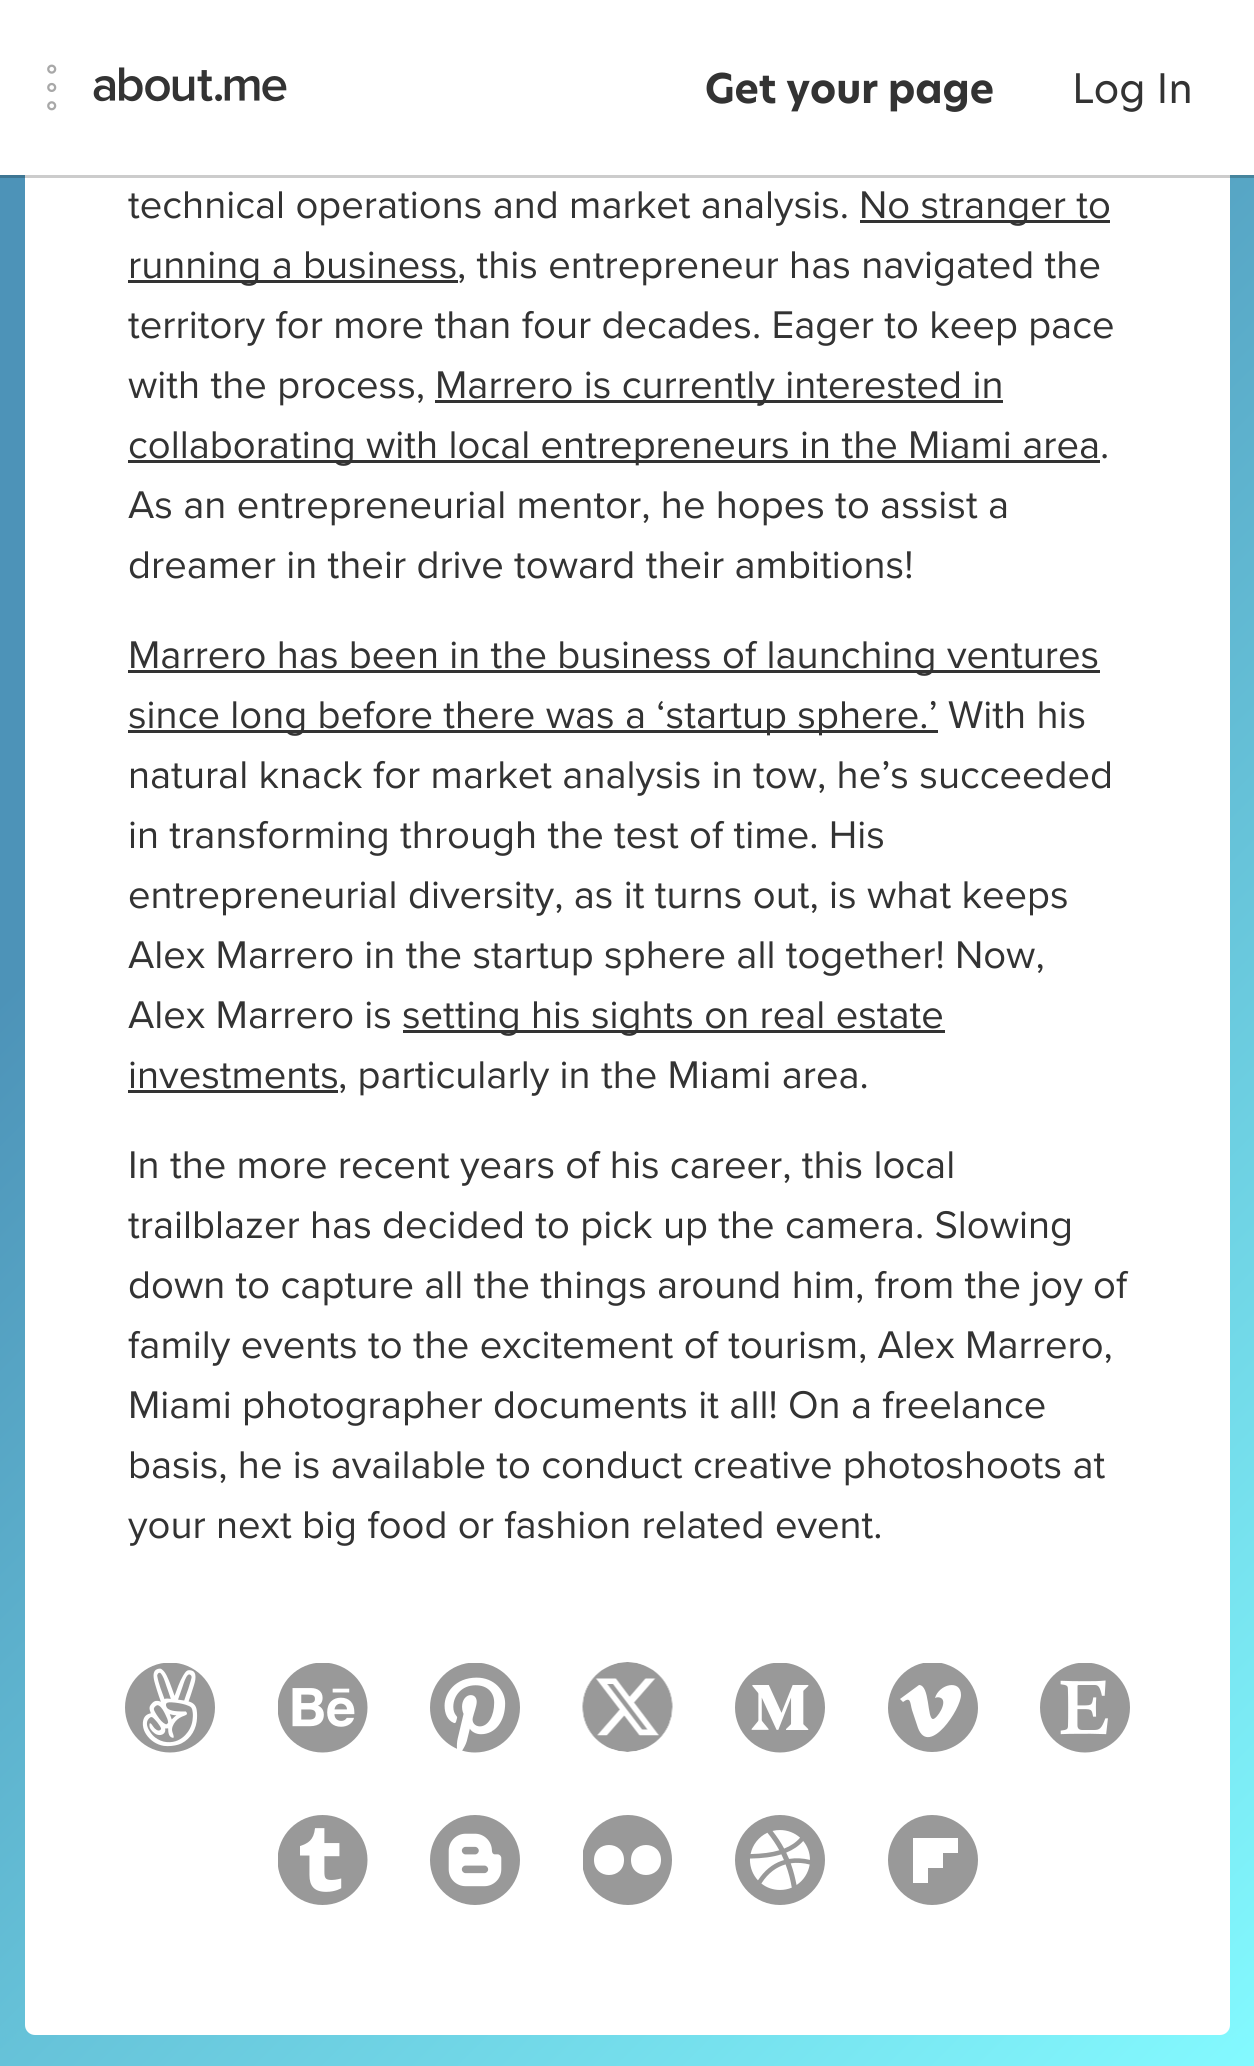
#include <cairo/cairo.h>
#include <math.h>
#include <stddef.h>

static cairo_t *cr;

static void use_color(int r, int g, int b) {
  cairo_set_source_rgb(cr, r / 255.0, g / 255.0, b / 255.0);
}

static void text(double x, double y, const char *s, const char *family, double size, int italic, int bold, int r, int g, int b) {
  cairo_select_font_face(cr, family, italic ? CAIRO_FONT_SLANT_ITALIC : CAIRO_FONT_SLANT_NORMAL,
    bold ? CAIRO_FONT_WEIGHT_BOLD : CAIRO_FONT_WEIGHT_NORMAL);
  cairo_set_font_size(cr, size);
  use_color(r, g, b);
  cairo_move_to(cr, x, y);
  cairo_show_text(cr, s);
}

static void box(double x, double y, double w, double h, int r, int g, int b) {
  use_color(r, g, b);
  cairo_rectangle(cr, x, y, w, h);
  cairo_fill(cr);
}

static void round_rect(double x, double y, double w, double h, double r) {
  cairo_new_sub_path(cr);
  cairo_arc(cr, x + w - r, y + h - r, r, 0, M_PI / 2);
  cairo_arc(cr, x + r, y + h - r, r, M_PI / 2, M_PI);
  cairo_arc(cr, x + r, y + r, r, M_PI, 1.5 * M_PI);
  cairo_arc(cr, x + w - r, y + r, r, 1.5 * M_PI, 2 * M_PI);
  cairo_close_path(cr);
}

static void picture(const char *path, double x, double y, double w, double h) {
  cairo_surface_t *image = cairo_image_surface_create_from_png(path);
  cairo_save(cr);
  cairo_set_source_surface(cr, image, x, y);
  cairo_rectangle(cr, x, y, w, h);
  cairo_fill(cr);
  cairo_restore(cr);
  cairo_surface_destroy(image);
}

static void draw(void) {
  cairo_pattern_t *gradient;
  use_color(255, 255, 255);
  cairo_paint(cr);
  gradient = cairo_pattern_create_linear(-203, 203, 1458, 1864);
  cairo_pattern_add_color_stop_rgba(gradient, 0, 0.302, 0.576, 0.722, 1);
  cairo_pattern_add_color_stop_rgba(gradient, 0.3, 0.302, 0.576, 0.722, 1);
  cairo_pattern_add_color_stop_rgba(gradient, 1, 0.514, 0.98, 1, 1);
  cairo_set_source(cr, gradient);
  cairo_pattern_destroy(gradient);
  cairo_rectangle(cr, 0, 178, 1254, 1888);
  cairo_fill(cr);
  gradient = cairo_pattern_create_linear(-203, 203, 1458, 1864);
  cairo_pattern_add_color_stop_rgba(gradient, 0, 0.243, 0.463, 0.576, 1);
  cairo_pattern_add_color_stop_rgba(gradient, 0.3, 0.243, 0.463, 0.576, 1);
  cairo_pattern_add_color_stop_rgba(gradient, 1, 0.412, 0.784, 0.8, 1);
  cairo_set_source(cr, gradient);
  cairo_pattern_destroy(gradient);
  cairo_rectangle(cr, 0, 175, 1254, 3);
  cairo_fill(cr);
  use_color(255, 255, 255);
  round_rect(25, -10, 1205, 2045, 10);
  cairo_fill(cr);
  picture("img_01.png", 47, 64, 10, 47);
  picture("img_02.png", 93, 67, 194, 35);
  box(25, 175, 1205, 3, 204, 204, 204);
  box(860, 220, 250, 3, 51, 51, 51);
  box(128, 280, 330, 3, 51, 51, 51);
  box(435, 400, 568, 3, 51, 51, 51);
  box(128, 460, 972, 3, 51, 51, 51);
  box(128, 670, 972, 3, 51, 51, 51);
  box(128, 730, 810, 3, 51, 51, 51);
  box(403, 1030, 542, 3, 51, 51, 51);
  box(128, 1090, 210, 3, 51, 51, 51);
  picture("img_03.png", 125, 1663, 90, 90);
  picture("img_04.png", 278, 1663, 90, 90);
  picture("img_05.png", 430, 1663, 90, 90);
  picture("img_06.png", 582, 1662, 91, 90);
  picture("img_07.png", 735, 1663, 90, 90);
  cairo_save(cr);
  cairo_rectangle(cr, 888, 1663, 90, 90);
  cairo_clip(cr);
  use_color(153, 153, 153);
  cairo_new_path(cr);
  cairo_move_to(cr, 978, 1708);
  cairo_curve_to(cr, 978, 1732, 957, 1752, 932, 1752);
  cairo_curve_to(cr, 908, 1752, 888, 1732, 888, 1708);
  cairo_curve_to(cr, 888, 1683, 908, 1662, 932, 1662);
  cairo_curve_to(cr, 957, 1662, 978, 1683, 978, 1708);
  cairo_close_path(cr);
  cairo_move_to(cr, 961, 1695);
  cairo_curve_to(cr, 961, 1679, 939, 1684, 935, 1698);
  cairo_curve_to(cr, 937, 1697, 939, 1697, 941, 1698);
  cairo_curve_to(cr, 948, 1702, 937, 1719, 933, 1719);
  cairo_curve_to(cr, 927, 1719, 930, 1685, 919, 1685);
  cairo_line_to(cr, 900, 1699);
  cairo_line_to(cr, 903, 1702);
  cairo_curve_to(cr, 911, 1696, 910, 1703, 912, 1710);
  cairo_line_to(cr, 918, 1728);
  cairo_curve_to(cr, 929, 1757, 961, 1709, 961, 1695);
  cairo_close_path(cr);
  cairo_fill(cr);
  cairo_restore(cr);
  picture("img_08.png", 1040, 1663, 90, 90);
  picture("img_09.png", 278, 1815, 90, 90);
  picture("img_10.png", 430, 1815, 90, 90);
  cairo_save(cr);
  cairo_rectangle(cr, 583, 1815, 90, 90);
  cairo_clip(cr);
  use_color(153, 153, 153);
  cairo_new_path(cr);
  cairo_move_to(cr, 672, 1860);
  cairo_curve_to(cr, 672, 1885, 652, 1905, 628, 1905);
  cairo_curve_to(cr, 603, 1905, 582, 1885, 582, 1860);
  cairo_curve_to(cr, 582, 1835, 603, 1815, 628, 1815);
  cairo_curve_to(cr, 652, 1815, 672, 1835, 672, 1860);
  cairo_close_path(cr);
  cairo_move_to(cr, 624, 1860);
  cairo_curve_to(cr, 624, 1840, 594, 1840, 594, 1860);
  cairo_curve_to(cr, 594, 1880, 624, 1880, 624, 1860);
  cairo_close_path(cr);
  cairo_move_to(cr, 661, 1860);
  cairo_curve_to(cr, 661, 1840, 631, 1840, 631, 1860);
  cairo_curve_to(cr, 631, 1880, 661, 1880, 661, 1860);
  cairo_close_path(cr);
  cairo_fill(cr);
  cairo_restore(cr);
  picture("img_11.png", 735, 1815, 90, 90);
  use_color(153, 153, 153);
  cairo_new_path(cr);
  cairo_move_to(cr, 932, 1815);
  cairo_curve_to(cr, 908, 1815, 888, 1835, 888, 1860);
  cairo_curve_to(cr, 888, 1885, 908, 1905, 932, 1905);
  cairo_curve_to(cr, 957, 1905, 978, 1885, 978, 1860);
  cairo_curve_to(cr, 978, 1835, 957, 1815, 932, 1815);
  cairo_close_path(cr);
  cairo_move_to(cr, 958, 1853);
  cairo_line_to(cr, 943, 1853);
  cairo_line_to(cr, 943, 1868);
  cairo_line_to(cr, 928, 1868);
  cairo_line_to(cr, 928, 1883);
  cairo_line_to(cr, 913, 1883);
  cairo_line_to(cr, 913, 1838);
  cairo_line_to(cr, 958, 1838);
  cairo_close_path(cr);
  cairo_fill(cr);
  text(705, 103, "Get your page", "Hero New", 40, 0, 1, 51, 51, 51);
  text(1072, 103, "Log In", "Hero New", 40, 0, 0, 51, 51, 51);
  text(128, 218, "technical operations and market analysis.", "Proxima Nova", 40, 0, 0, 51, 51, 51);
  text(859, 218, "No stranger to", "Proxima Nova", 40, 0, 0, 51, 51, 51);
  text(128, 278, "running a business", "Proxima Nova", 40, 0, 0, 51, 51, 51);
  text(457, 278, ", this entrepreneur has navigated the", "Proxima Nova", 40, 0, 0, 51, 51, 51);
  text(128, 338, "territory for more than four decades. Eager to keep pace", "Proxima Nova", 40, 0, 0, 51, 51, 51);
  text(128, 398, "with the process,", "Proxima Nova", 40, 0, 0, 51, 51, 51);
  text(435, 398, "Marrero is currently interested in", "Proxima Nova", 40, 0, 0, 51, 51, 51);
  text(128, 458, "collaborating with local entrepreneurs in the Miami area", "Proxima Nova", 40, 0, 0, 51, 51, 51);
  text(1100, 458, ".", "Proxima Nova", 40, 0, 0, 51, 51, 51);
  text(128, 518, "As an entrepreneurial mentor, he hopes to assist a", "Proxima Nova", 40, 0, 0, 51, 51, 51);
  text(128, 578, "dreamer in their drive toward their ambitions!", "Proxima Nova", 40, 0, 0, 51, 51, 51);
  text(128, 668, "Marrero has been in the business of launching ventures", "Proxima Nova", 40, 0, 0, 51, 51, 51);
  text(128, 728, "since long before there was a ‘startup sphere.’", "Proxima Nova", 40, 0, 0, 51, 51, 51);
  text(948, 728, "With his", "Proxima Nova", 40, 0, 0, 51, 51, 51);
  text(128, 788, "natural knack for market analysis in tow, he’s succeeded", "Proxima Nova", 40, 0, 0, 51, 51, 51);
  text(128, 848, "in transforming through the test of time. His", "Proxima Nova", 40, 0, 0, 51, 51, 51);
  text(128, 908, "entrepreneurial diversity, as it turns out, is what keeps", "Proxima Nova", 40, 0, 0, 51, 51, 51);
  text(128, 968, "Alex Marrero in the startup sphere all together! Now,", "Proxima Nova", 40, 0, 0, 51, 51, 51);
  text(128, 1028, "Alex Marrero is", "Proxima Nova", 40, 0, 0, 51, 51, 51);
  text(402, 1028, "setting his sights on real estate", "Proxima Nova", 40, 0, 0, 51, 51, 51);
  text(128, 1088, "investments", "Proxima Nova", 40, 0, 0, 51, 51, 51);
  text(338, 1088, ", particularly in the Miami area.", "Proxima Nova", 40, 0, 0, 51, 51, 51);
  text(128, 1178, "In the more recent years of his career, this local", "Proxima Nova", 40, 0, 0, 51, 51, 51);
  text(128, 1238, "trailblazer has decided to pick up the camera. Slowing", "Proxima Nova", 40, 0, 0, 51, 51, 51);
  text(128, 1298, "down to capture all the things around him, from the joy of", "Proxima Nova", 40, 0, 0, 51, 51, 51);
  text(128, 1358, "family events to the excitement of tourism, Alex Marrero,", "Proxima Nova", 40, 0, 0, 51, 51, 51);
  text(128, 1418, "Miami photographer documents it all! On a freelance", "Proxima Nova", 40, 0, 0, 51, 51, 51);
  text(128, 1478, "basis, he is available to conduct creative photoshoots at", "Proxima Nova", 40, 0, 0, 51, 51, 51);
  text(128, 1538, "your next big food or fashion related event.", "Proxima Nova", 40, 0, 0, 51, 51, 51);
}

int main(void) {
  cairo_surface_t *surface = cairo_image_surface_create(CAIRO_FORMAT_RGB24, 1254, 2066);
  cr = cairo_create(surface);
  cairo_font_options_t *options = cairo_font_options_create();
  cairo_font_options_set_hint_metrics(options, CAIRO_HINT_METRICS_OFF);
  cairo_font_options_set_hint_style(options, CAIRO_HINT_STYLE_NONE);
  cairo_set_font_options(cr, options);
  cairo_set_miter_limit(cr, 4);
  draw();
  cairo_surface_write_to_png(surface, "out.png");
  cairo_font_options_destroy(options);
  cairo_destroy(cr);
  cairo_surface_destroy(surface);
  return 0;
}
